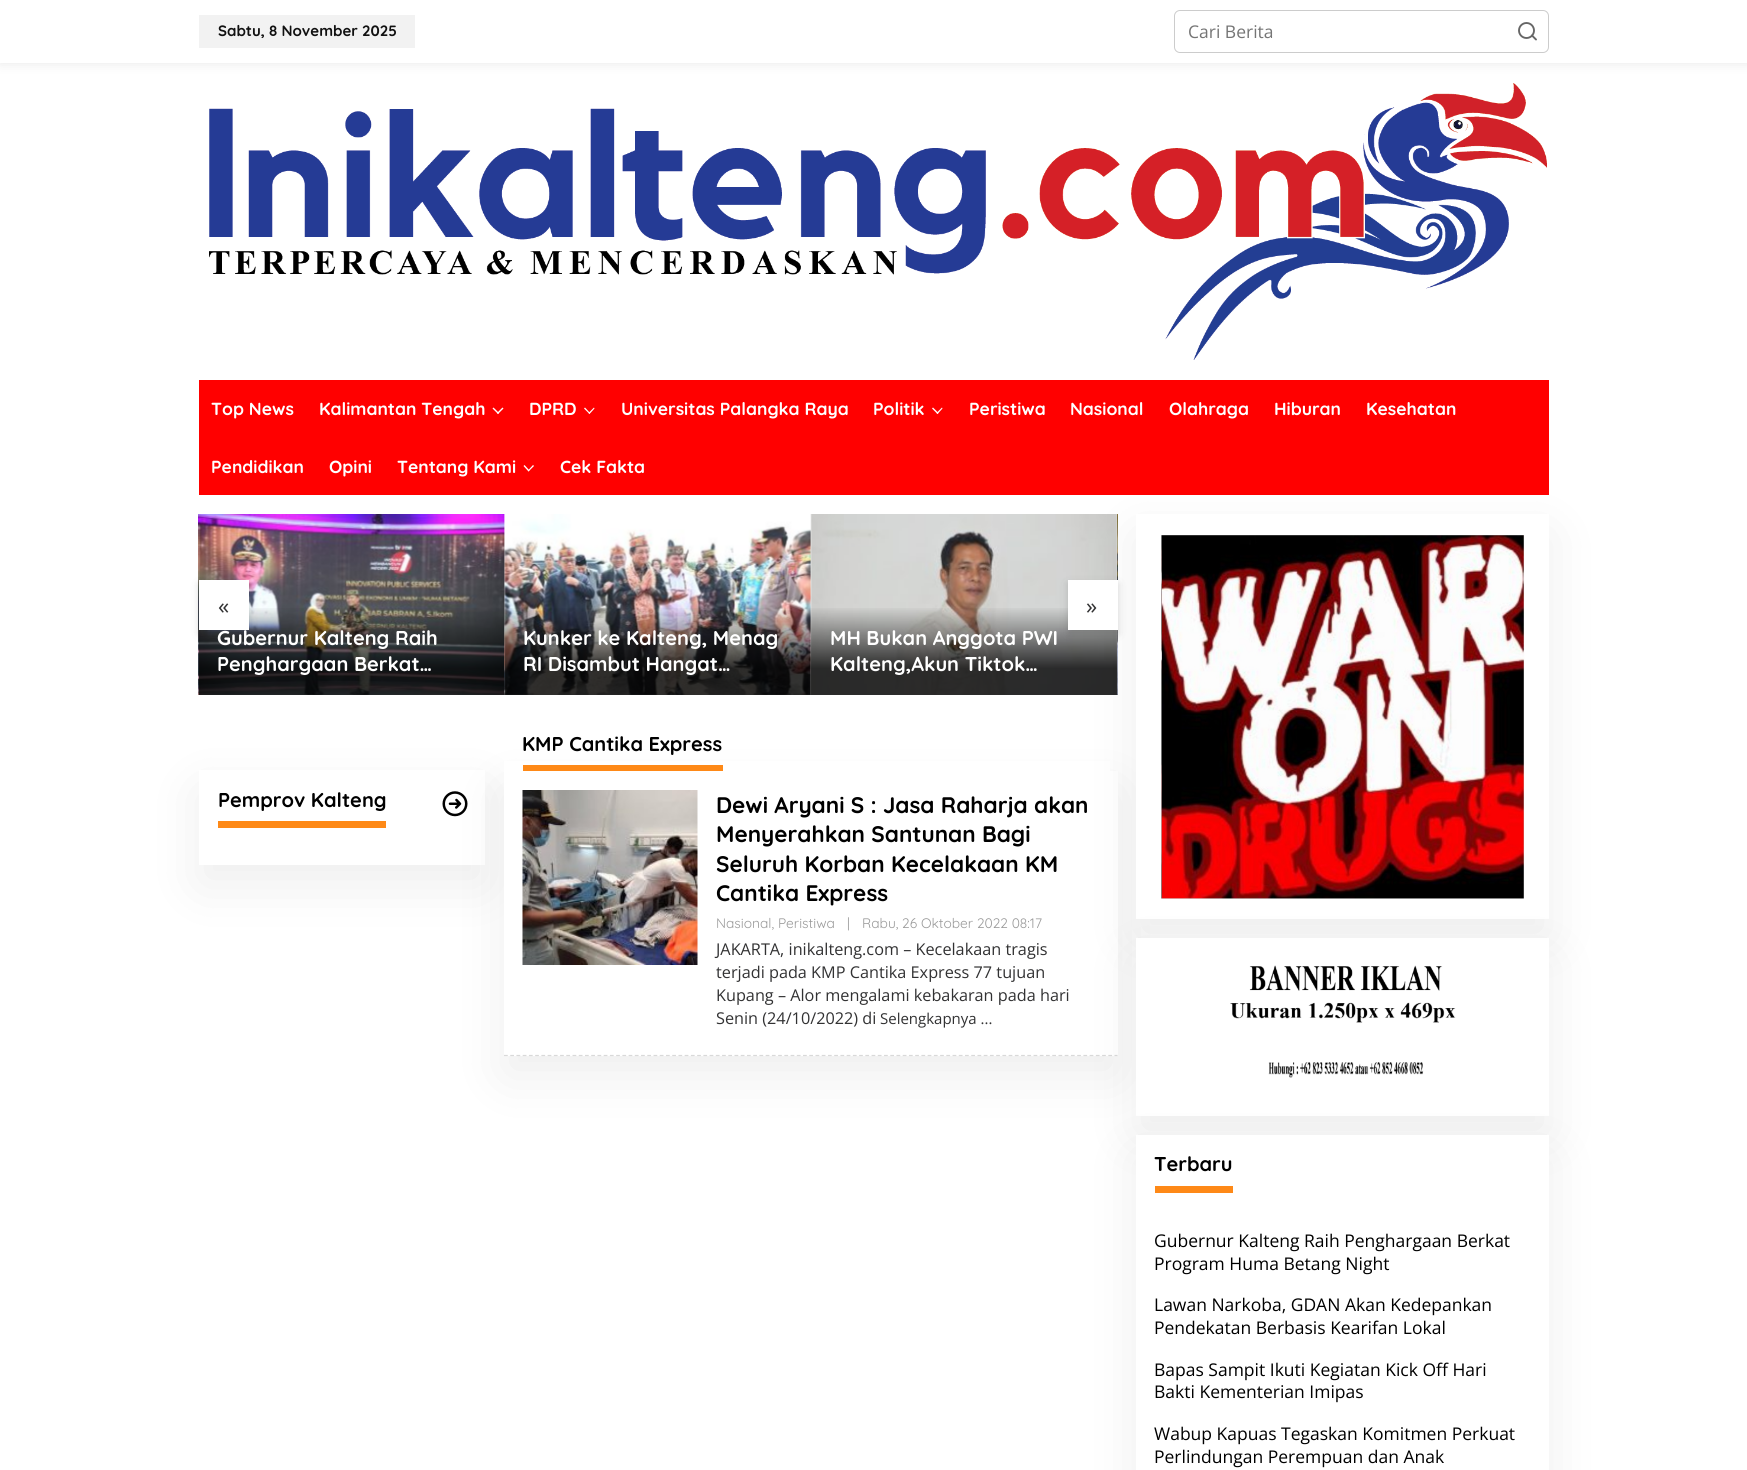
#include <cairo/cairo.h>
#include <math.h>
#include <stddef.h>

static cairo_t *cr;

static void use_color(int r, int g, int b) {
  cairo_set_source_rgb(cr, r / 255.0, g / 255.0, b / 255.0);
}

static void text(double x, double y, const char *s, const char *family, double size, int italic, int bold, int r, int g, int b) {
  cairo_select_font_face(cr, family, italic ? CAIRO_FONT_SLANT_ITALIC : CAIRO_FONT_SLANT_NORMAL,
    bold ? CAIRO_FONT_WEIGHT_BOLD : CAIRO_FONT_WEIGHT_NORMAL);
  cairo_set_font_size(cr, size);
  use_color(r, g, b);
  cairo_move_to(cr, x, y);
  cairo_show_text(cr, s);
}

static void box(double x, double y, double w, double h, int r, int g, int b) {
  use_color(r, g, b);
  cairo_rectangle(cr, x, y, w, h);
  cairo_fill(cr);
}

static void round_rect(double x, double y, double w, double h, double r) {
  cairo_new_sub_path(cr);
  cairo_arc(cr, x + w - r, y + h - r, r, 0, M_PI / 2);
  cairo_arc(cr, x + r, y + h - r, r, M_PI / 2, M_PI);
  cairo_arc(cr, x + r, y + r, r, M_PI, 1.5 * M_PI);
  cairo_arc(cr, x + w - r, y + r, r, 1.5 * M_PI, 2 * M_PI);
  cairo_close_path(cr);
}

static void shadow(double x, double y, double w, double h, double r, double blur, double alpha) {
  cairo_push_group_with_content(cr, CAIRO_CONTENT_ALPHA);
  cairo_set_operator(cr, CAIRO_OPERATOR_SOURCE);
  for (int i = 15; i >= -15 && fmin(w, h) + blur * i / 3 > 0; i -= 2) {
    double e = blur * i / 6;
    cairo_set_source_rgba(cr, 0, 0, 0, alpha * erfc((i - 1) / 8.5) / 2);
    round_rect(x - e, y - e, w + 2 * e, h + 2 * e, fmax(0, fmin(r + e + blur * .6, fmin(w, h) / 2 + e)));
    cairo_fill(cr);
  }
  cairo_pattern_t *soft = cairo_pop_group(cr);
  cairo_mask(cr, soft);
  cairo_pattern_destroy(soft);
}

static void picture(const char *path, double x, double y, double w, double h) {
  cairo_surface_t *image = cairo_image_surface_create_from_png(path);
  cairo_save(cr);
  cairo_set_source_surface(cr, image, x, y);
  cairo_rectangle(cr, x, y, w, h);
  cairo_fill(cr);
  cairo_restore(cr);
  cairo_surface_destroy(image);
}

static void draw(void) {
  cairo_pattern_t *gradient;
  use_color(255, 255, 255);
  cairo_paint(cr);
  use_color(0, 0, 0);
  shadow(0, 0, 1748, 63, 0, 6, 0.1);
  box(0, 0, 1747, 63, 255, 255, 255);
  box(199, 15, 216, 33, 242, 242, 242);
  round_rect(1174.5, 10.5, 374, 42, 5.5);
  use_color(204, 204, 204);
  cairo_set_line_width(cr, 1);
  cairo_stroke(cr);
  cairo_arc(cr, 1526.5, 30.5, 7.5, 0, 2 * M_PI);
  use_color(102, 102, 102);
  cairo_set_line_width(cr, 1.9);
  cairo_stroke(cr);
  cairo_new_path(cr);
  cairo_move_to(cr, 1536, 39.5);
  cairo_line_to(cr, 1532, 35.5);
  cairo_set_line_cap(cr, CAIRO_LINE_CAP_ROUND);
  cairo_set_line_join(cr, CAIRO_LINE_JOIN_ROUND);
  cairo_stroke(cr);
  picture("img_01.png", 209, 83, 1338, 277);
  box(199, 380, 1350, 115, 255, 0, 0);
  use_color(255, 255, 255);
  cairo_new_path(cr);
  cairo_move_to(cr, 502.5, 407.5);
  cairo_line_to(cr, 503.5, 408.5);
  cairo_line_to(cr, 498, 414);
  cairo_line_to(cr, 497, 413);
  cairo_close_path(cr);
  cairo_fill(cr);
  cairo_new_path(cr);
  cairo_move_to(cr, 493.5, 407.5);
  cairo_line_to(cr, 499, 413);
  cairo_line_to(cr, 498, 414);
  cairo_line_to(cr, 492.5, 408.5);
  cairo_close_path(cr);
  cairo_fill(cr);
  cairo_new_path(cr);
  cairo_move_to(cr, 594, 407.5);
  cairo_line_to(cr, 594.5, 408.5);
  cairo_line_to(cr, 589.5, 414);
  cairo_line_to(cr, 588.5, 413);
  cairo_close_path(cr);
  cairo_fill(cr);
  cairo_new_path(cr);
  cairo_move_to(cr, 585, 407.5);
  cairo_line_to(cr, 590, 413);
  cairo_line_to(cr, 589.5, 414);
  cairo_line_to(cr, 584, 408.5);
  cairo_close_path(cr);
  cairo_fill(cr);
  cairo_new_path(cr);
  cairo_move_to(cr, 942, 407.5);
  cairo_line_to(cr, 942.5, 408.5);
  cairo_line_to(cr, 937.5, 414);
  cairo_line_to(cr, 936.5, 413);
  cairo_close_path(cr);
  cairo_fill(cr);
  cairo_new_path(cr);
  cairo_move_to(cr, 933, 407.5);
  cairo_line_to(cr, 938.5, 413);
  cairo_line_to(cr, 937.5, 414);
  cairo_line_to(cr, 932, 408.5);
  cairo_close_path(cr);
  cairo_fill(cr);
  cairo_new_path(cr);
  cairo_move_to(cr, 533, 465);
  cairo_line_to(cr, 534, 466);
  cairo_line_to(cr, 528.5, 471.5);
  cairo_line_to(cr, 528, 470.5);
  cairo_close_path(cr);
  cairo_fill(cr);
  cairo_new_path(cr);
  cairo_move_to(cr, 524.5, 465);
  cairo_line_to(cr, 529.5, 470.5);
  cairo_line_to(cr, 528.5, 471.5);
  cairo_line_to(cr, 523.5, 466);
  cairo_close_path(cr);
  cairo_fill(cr);
  picture("img_06.png", 198, 694, 2, 1);
  picture("img_02.png", 198, 514, 307, 181);
  gradient = cairo_pattern_create_linear(352, 606, 352, 695);
  cairo_pattern_add_color_stop_rgba(gradient, 0, 0, 0, 0, 0);
  cairo_pattern_add_color_stop_rgba(gradient, 0.7, 0, 0, 0, 0.8);
  cairo_set_source(cr, gradient);
  cairo_pattern_destroy(gradient);
  cairo_rectangle(cr, 199, 608, 306, 87);
  cairo_fill(cr);
  use_color(51, 51, 51);
  shadow(199, 584, 50, 50, 0, 4, 0.2);
  box(199, 580, 50, 50, 255, 255, 255);
  picture("img_03.png", 504, 514, 307, 181);
  gradient = cairo_pattern_create_linear(658, 606, 658, 695);
  cairo_pattern_add_color_stop_rgba(gradient, 0, 0, 0, 0, 0);
  cairo_pattern_add_color_stop_rgba(gradient, 0.7, 0, 0, 0, 0.8);
  cairo_set_source(cr, gradient);
  cairo_pattern_destroy(gradient);
  cairo_rectangle(cr, 505, 608, 306, 87);
  cairo_fill(cr);
  picture("img_04.png", 810, 514, 308, 181);
  gradient = cairo_pattern_create_linear(964, 606, 964, 695);
  cairo_pattern_add_color_stop_rgba(gradient, 0, 0, 0, 0, 0);
  cairo_pattern_add_color_stop_rgba(gradient, 0.7, 0, 0, 0, 0.8);
  cairo_set_source(cr, gradient);
  cairo_pattern_destroy(gradient);
  cairo_rectangle(cr, 811, 608, 307, 87);
  cairo_fill(cr);
  picture("img_05.png", 1117, 514, 1, 181);
  use_color(51, 51, 51);
  shadow(1068, 584, 50, 50, 0, 4, 0.2);
  use_color(0, 0, 0);
  shadow(199, 790, 286, 95, 0, 28, 0.07);
  box(199, 770, 286, 95, 255, 255, 255);
  picture("img_07.png", 442, 791, 26, 26);
  use_color(0, 0, 0);
  shadow(504, 791, 614, 285, 0, 28, 0.07);
  box(504, 761, 606, 10, 255, 255, 255);
  box(504, 771, 614, 285, 255, 255, 255);
  use_color(0, 0, 0);
  shadow(1136, 534, 413, 405, 0, 28, 0.07);
  box(1068, 580, 50, 50, 255, 255, 255);
  box(218, 821, 168, 7, 254, 137, 23);
  box(523, 765, 200, 6, 254, 137, 23);
  cairo_new_path(cr);
  cairo_move_to(cr, 504, 1055.5);
  cairo_line_to(cr, 1117.5, 1055.5);
  use_color(217, 217, 217);
  cairo_set_line_width(cr, 1.2);
  cairo_set_line_cap(cr, CAIRO_LINE_CAP_BUTT);
  cairo_set_line_join(cr, CAIRO_LINE_JOIN_MITER);
  cairo_set_dash(cr, (double[]){3.75, 2.48}, 2, 0);
  cairo_stroke(cr);
  picture("img_08.png", 522, 790, 176, 175);
  box(1136, 514, 413, 405, 255, 255, 255);
  use_color(0, 0, 0);
  shadow(1136, 958, 413, 178, 0, 28, 0.07);
  picture("img_09.png", 1161, 535, 364, 364);
  box(1136, 938, 413, 178, 255, 255, 255);
  use_color(0, 0, 0);
  shadow(1136, 1155, 413, 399, 0, 28, 0.07);
  picture("img_10.png", 1230, 965, 226, 113);
  box(1136, 1135, 413, 335, 255, 255, 255);
  box(1155, 1186, 78, 7, 254, 137, 23);
  text(218, 36, "Sabtu, 8 November 2025", "Quicksand", 15, 0, 1, 17, 17, 17);
  text(1188, 38, "Cari Berita", "Open Sans", 17.5, 0, 0, 117, 117, 117);
  text(211, 415, "Top News", "Quicksand", 17.5, 0, 1, 255, 255, 255);
  text(319, 415, "Kalimantan Tengah", "Quicksand", 17.5, 0, 1, 255, 255, 255);
  text(529, 415, "DPRD", "Quicksand", 17.5, 0, 1, 255, 255, 255);
  text(621, 415, "Universitas Palangka Raya", "Quicksand", 17.5, 0, 1, 255, 255, 255);
  text(873, 415, "Politik", "Quicksand", 17.5, 0, 1, 255, 255, 255);
  text(969, 415, "Peristiwa", "Quicksand", 17.5, 0, 1, 255, 255, 255);
  text(1070, 415, "Nasional", "Quicksand", 17.5, 0, 1, 255, 255, 255);
  text(1169, 415, "Olahraga", "Quicksand", 17.5, 0, 1, 255, 255, 255);
  text(1274, 415, "Hiburan", "Quicksand", 17.5, 0, 1, 255, 255, 255);
  text(1366, 415, "Kesehatan", "Quicksand", 17.5, 0, 1, 255, 255, 255);
  text(211, 473, "Pendidikan", "Quicksand", 17.5, 0, 1, 255, 255, 255);
  text(329, 473, "Opini", "Quicksand", 17.5, 0, 1, 255, 255, 255);
  text(397, 473, "Tentang Kami", "Quicksand", 17.5, 0, 1, 255, 255, 255);
  text(560, 473, "Cek Fakta", "Quicksand", 17.5, 0, 1, 255, 255, 255);
  text(218, 614, "«", "Open Sans", 22.5, 0, 0, 50, 50, 51);
  text(1086, 614, "»", "Open Sans", 22.5, 0, 0, 50, 50, 51);
  text(217, 645, "Gubernur Kalteng Raih", "Quicksand", 20, 0, 1, 255, 255, 255);
  text(217, 671, "Penghargaan Berkat…", "Quicksand", 20, 0, 1, 255, 255, 255);
  text(523, 645, "Kunker ke Kalteng, Menag", "Quicksand", 20, 0, 1, 255, 255, 255);
  text(523, 671, "RI Disambut Hangat…", "Quicksand", 20, 0, 1, 255, 255, 255);
  text(830, 645, "MH Bukan Anggota PWI", "Quicksand", 20, 0, 1, 255, 255, 255);
  text(830, 671, "Kalteng,Akun Tiktok…", "Quicksand", 20, 0, 1, 255, 255, 255);
  text(218, 807, "Pemprov Kalteng", "Quicksand", 20, 0, 1, 0, 0, 0);
  text(522, 751, "KMP Cantika Express", "Quicksand", 20, 0, 1, 0, 0, 0);
  text(716, 813, "Dewi Aryani S : Jasa Raharja akan", "Quicksand", 22.5, 0, 1, 0, 0, 0);
  text(716, 842, "Menyerahkan Santunan Bagi", "Quicksand", 22.5, 0, 1, 0, 0, 0);
  text(716, 872, "Seluruh Korban Kecelakaan KM", "Quicksand", 22.5, 0, 1, 0, 0, 0);
  text(716, 901, "Cantika Express", "Quicksand", 22.5, 0, 1, 0, 0, 0);
  text(716, 928, "Nasional, Peristiwa", "Quicksand", 13.75, 0, 0, 153, 153, 153);
  text(847, 928, "|", "Quicksand", 13.75, 0, 0, 153, 153, 153);
  text(862, 928, "Rabu, 26 Oktober 2022 08:17", "Quicksand", 13.75, 0, 0, 153, 153, 153);
  text(716, 955, "JAKARTA, inikalteng.com – Kecelakaan tragis", "Open Sans", 16.25, 0, 0, 50, 50, 51);
  text(716, 978, "terjadi pada KMP Cantika Express 77 tujuan", "Open Sans", 16.25, 0, 0, 50, 50, 51);
  text(716, 1001, "Kupang – Alor mengalami kebakaran pada hari", "Open Sans", 16.25, 0, 0, 50, 50, 51);
  text(716, 1024, "Senin (24/10/2022) di", "Open Sans", 16.25, 0, 0, 50, 50, 51);
  text(880, 1024, "Selengkapnya ...", "Open Sans", 15, 0, 0, 50, 50, 51);
  text(1154, 1171, "Terbaru", "Quicksand", 20, 0, 1, 0, 0, 0);
  text(1154, 1247, "Gubernur Kalteng Raih Penghargaan Berkat", "Open Sans", 17.5, 0, 0, 0, 0, 0);
  text(1154, 1270, "Program Huma Betang Night", "Open Sans", 17.5, 0, 0, 0, 0, 0);
  text(1154, 1311, "Lawan Narkoba, GDAN Akan Kedepankan", "Open Sans", 17.5, 0, 0, 0, 0, 0);
  text(1154, 1334, "Pendekatan Berbasis Kearifan Lokal", "Open Sans", 17.5, 0, 0, 0, 0, 0);
  text(1154, 1376, "Bapas Sampit Ikuti Kegiatan Kick Off Hari", "Open Sans", 17.5, 0, 0, 0, 0, 0);
  text(1154, 1398, "Bakti Kementerian Imipas", "Open Sans", 17.5, 0, 0, 0, 0, 0);
  text(1154, 1440, "Wabup Kapuas Tegaskan Komitmen Perkuat", "Open Sans", 17.5, 0, 0, 0, 0, 0);
  text(1154, 1463, "Perlindungan Perempuan dan Anak", "Open Sans", 17.5, 0, 0, 0, 0, 0);
}

int main(void) {
  cairo_surface_t *surface = cairo_image_surface_create(CAIRO_FORMAT_RGB24, 1747, 1470);
  cr = cairo_create(surface);
  cairo_font_options_t *options = cairo_font_options_create();
  cairo_font_options_set_hint_metrics(options, CAIRO_HINT_METRICS_OFF);
  cairo_font_options_set_hint_style(options, CAIRO_HINT_STYLE_NONE);
  cairo_set_font_options(cr, options);
  cairo_set_miter_limit(cr, 4);
  draw();
  cairo_surface_write_to_png(surface, "out.png");
  cairo_font_options_destroy(options);
  cairo_destroy(cr);
  cairo_surface_destroy(surface);
  return 0;
}
